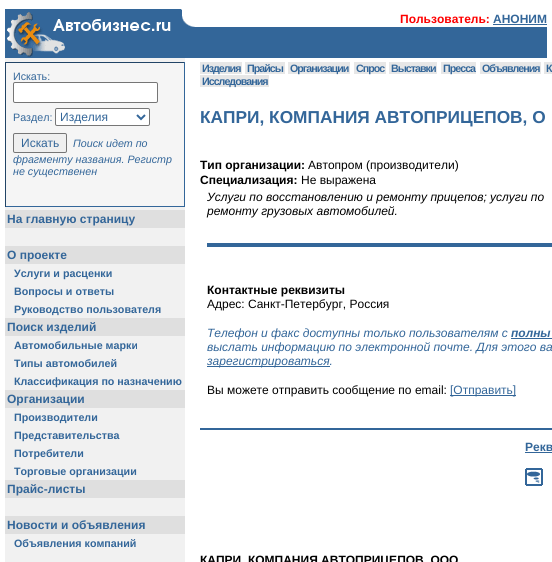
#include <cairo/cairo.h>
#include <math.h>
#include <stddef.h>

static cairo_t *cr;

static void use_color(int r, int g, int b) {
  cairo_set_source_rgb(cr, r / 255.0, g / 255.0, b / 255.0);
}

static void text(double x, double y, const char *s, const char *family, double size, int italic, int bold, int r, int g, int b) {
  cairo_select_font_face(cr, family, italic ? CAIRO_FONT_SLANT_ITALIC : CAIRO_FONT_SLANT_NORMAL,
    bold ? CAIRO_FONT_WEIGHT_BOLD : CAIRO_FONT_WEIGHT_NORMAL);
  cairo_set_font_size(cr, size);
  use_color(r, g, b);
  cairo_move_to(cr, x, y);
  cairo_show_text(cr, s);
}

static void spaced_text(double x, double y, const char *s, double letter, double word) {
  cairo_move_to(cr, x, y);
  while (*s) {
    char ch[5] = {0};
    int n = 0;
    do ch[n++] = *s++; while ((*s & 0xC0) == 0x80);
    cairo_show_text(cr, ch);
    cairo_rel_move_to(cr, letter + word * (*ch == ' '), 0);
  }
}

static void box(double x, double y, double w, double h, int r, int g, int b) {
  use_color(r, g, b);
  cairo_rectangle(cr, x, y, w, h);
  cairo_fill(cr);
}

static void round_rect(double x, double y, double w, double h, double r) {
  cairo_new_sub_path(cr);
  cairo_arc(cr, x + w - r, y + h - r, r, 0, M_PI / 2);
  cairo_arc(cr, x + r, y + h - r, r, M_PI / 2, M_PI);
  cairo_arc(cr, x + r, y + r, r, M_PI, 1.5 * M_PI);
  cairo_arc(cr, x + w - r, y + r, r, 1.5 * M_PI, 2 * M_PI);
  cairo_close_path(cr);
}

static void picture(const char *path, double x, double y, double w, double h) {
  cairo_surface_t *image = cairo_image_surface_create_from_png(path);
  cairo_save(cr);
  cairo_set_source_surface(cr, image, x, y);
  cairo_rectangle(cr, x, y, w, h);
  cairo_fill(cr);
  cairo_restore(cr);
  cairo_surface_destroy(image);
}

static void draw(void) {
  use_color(255, 255, 255);
  cairo_paint(cr);
  picture("img_01.png", 5, 9, 190, 49);
  box(493, 24, 54, 1, 51, 102, 153);
  box(195, 27, 352, 31, 51, 102, 153);
  box(5, 58, 180, 504, 241, 241, 241);
  box(6, 63, 178, 143, 245, 245, 245);
  box(5, 62, 180, 1, 34, 68, 102);
  box(184, 62, 1, 145, 51, 102, 153);
  box(5, 206, 180, 1, 51, 102, 153);
  box(5, 62, 1, 145, 34, 68, 102);
  use_color(255, 255, 255);
  round_rect(13.5, 82.5, 144, 20, 1.5);
  cairo_fill_preserve(cr);
  use_color(118, 118, 118);
  cairo_set_line_width(cr, 1);
  cairo_stroke(cr);
  use_color(255, 255, 255);
  round_rect(55.5, 108.5, 94, 17, 1.5);
  cairo_fill_preserve(cr);
  use_color(118, 118, 118);
  cairo_stroke(cr);
  cairo_new_path(cr);
  cairo_move_to(cr, 137, 115);
  cairo_line_to(cr, 141, 119);
  cairo_line_to(cr, 145, 115);
  use_color(51, 102, 153);
  cairo_set_line_width(cr, 2);
  cairo_stroke(cr);
  use_color(239, 239, 239);
  round_rect(13.5, 133.5, 53, 19, 1.5);
  cairo_fill_preserve(cr);
  use_color(118, 118, 118);
  cairo_set_line_width(cr, 1);
  cairo_stroke(cr);
  box(5, 210, 180, 18, 223, 223, 223);
  box(5, 246, 180, 18, 223, 223, 223);
  box(5, 318, 180, 18, 223, 223, 223);
  box(5, 390, 180, 18, 223, 223, 223);
  box(5, 480, 180, 18, 223, 223, 223);
  box(5, 516, 180, 18, 223, 223, 223);
  box(200, 62, 42, 12, 231, 231, 231);
  box(245, 62, 40, 12, 231, 231, 231);
  box(288, 62, 62, 12, 231, 231, 231);
  box(354, 62, 32, 12, 231, 231, 231);
  box(389, 62, 48, 12, 231, 231, 231);
  box(441, 62, 35, 12, 231, 231, 231);
  box(480, 62, 61, 12, 231, 231, 231);
  box(544, 62, 8, 12, 231, 231, 231);
  box(200, 75, 69, 12, 231, 231, 231);
  box(207, 243, 345, 4, 51, 102, 153);
  box(511, 338, 41, 1, 51, 102, 153);
  box(207, 366, 123, 1, 51, 102, 153);
  box(450, 395, 66, 1, 51, 102, 153);
  box(200, 428, 352, 2, 51, 102, 153);
  box(525, 452, 27, 1, 51, 102, 153);
  picture("img_02.png", 525, 468, 18, 18);
  text(400, 23, "Пользователь:", "Liberation Sans", 12, 0, 1, 255, 0, 0);
  text(493, 23, "АНОНИМ", "Liberation Sans", 12, 0, 1, 51, 102, 153);
  text(13, 80, "Искать:", "Liberation Sans", 10.7, 0, 0, 51, 102, 153);
  text(13, 121, "Раздел:", "Liberation Sans", 10.7, 0, 0, 51, 102, 153);
  text(60, 121, "Изделия", "Liberation Sans", 12, 0, 0, 51, 102, 153);
  text(21, 147, "Искать", "Liberation Sans", 12, 0, 0, 51, 102, 153);
  text(73, 147, "Поиск идет по", "Liberation Sans", 10.7, 1, 0, 51, 102, 153);
  text(13, 163, "фрагменту названия. Регистр", "Liberation Sans", 10.7, 1, 0, 51, 102, 153);
  text(13, 175, "не существенен", "Liberation Sans", 10.7, 1, 0, 51, 102, 153);
  text(7, 223, "На главную страницу", "Liberation Sans", 12, 0, 1, 51, 102, 153);
  text(7, 259, "О проекте", "Liberation Sans", 12, 0, 1, 51, 102, 153);
  text(14, 277, "Услуги и расценки", "Liberation Sans", 10.7, 0, 1, 51, 102, 153);
  text(14, 295, "Вопросы и ответы", "Liberation Sans", 10.7, 0, 1, 51, 102, 153);
  text(14, 313, "Руководство пользователя", "Liberation Sans", 10.7, 0, 1, 51, 102, 153);
  text(7, 331, "Поиск изделий", "Liberation Sans", 12, 0, 1, 51, 102, 153);
  text(14, 349, "Автомобильные марки", "Liberation Sans", 10.7, 0, 1, 51, 102, 153);
  text(14, 367, "Типы автомобилей", "Liberation Sans", 10.7, 0, 1, 51, 102, 153);
  text(14, 385, "Классификация по назначению", "Liberation Sans", 10.7, 0, 1, 51, 102, 153);
  text(7, 403, "Организации", "Liberation Sans", 12, 0, 1, 51, 102, 153);
  text(14, 421, "Производители", "Liberation Sans", 10.7, 0, 1, 51, 102, 153);
  text(14, 439, "Представительства", "Liberation Sans", 10.7, 0, 1, 51, 102, 153);
  text(14, 457, "Потребители", "Liberation Sans", 10.7, 0, 1, 51, 102, 153);
  text(14, 475, "Торговые организации", "Liberation Sans", 10.7, 0, 1, 51, 102, 153);
  text(7, 493, "Прайс-листы", "Liberation Sans", 12, 0, 1, 51, 102, 153);
  text(7, 529, "Новости и объявления", "Liberation Sans", 12, 0, 1, 51, 102, 153);
  text(14, 547, "Объявления компаний", "Liberation Sans", 10.7, 0, 1, 51, 102, 153);
  spaced_text(202, 72, "Изделия", -1, 0);
  spaced_text(247, 72, "Прайсы", -1, 0);
  spaced_text(290, 72, "Организации", -1, 0);
  spaced_text(356, 72, "Спрос", -1, 0);
  spaced_text(391, 72, "Выставки", -1, 0);
  spaced_text(443, 72, "Пресса", -1, 0);
  spaced_text(482, 72, "Объявления", -1, 0);
  spaced_text(546, 72, "К", -1, 0);
  spaced_text(202, 85, "Исследования", -1, 0);
  text(200, 123, "КАПРИ, КОМПАНИЯ АВТОПРИЦЕПОВ, О", "Liberation Sans", 17.3, 0, 1, 51, 102, 153);
  text(200, 169, "Тип организации:", "Liberation Sans", 12, 0, 1, 0, 0, 0);
  text(308, 169, "Автопром (производители)", "Liberation Sans", 12, 0, 0, 0, 0, 0);
  text(200, 184, "Специализация:", "Liberation Sans", 12, 0, 1, 0, 0, 0);
  text(301, 184, "Не выражена", "Liberation Sans", 12, 0, 0, 0, 0, 0);
  text(207, 201, "Услуги по восстановлению и ремонту прицепов; услуги по", "Liberation Sans", 12, 1, 0, 0, 0, 0);
  text(207, 215, "ремонту грузовых автомобилей.", "Liberation Sans", 12, 1, 0, 0, 0, 0);
  text(207, 294, "Контактные реквизиты", "Liberation Sans", 12, 0, 1, 0, 0, 0);
  text(207, 308, "Адрес: Санкт-Петербург, Россия", "Liberation Sans", 12, 0, 0, 0, 0, 0);
  text(207, 337, "Телефон и факс доступны только пользователям с", "Liberation Sans", 12, 1, 0, 51, 102, 153);
  text(511, 337, "полны", "Liberation Sans", 12, 1, 1, 51, 102, 153);
  text(207, 351, "выслать информацию по электронной почте. Для этого ва", "Liberation Sans", 12, 1, 0, 51, 102, 153);
  text(207, 365, "зарегистрироваться.", "Liberation Sans", 12, 1, 0, 51, 102, 153);
  text(207, 394, "Вы можете отправить сообщение по email:", "Liberation Sans", 12, 0, 0, 0, 0, 0);
  text(450, 394, "[Отправить]", "Liberation Sans", 12, 0, 0, 51, 102, 153);
  text(525, 451, "Рекв", "Liberation Sans", 12, 0, 1, 51, 102, 153);
  text(200, 564, "КАПРИ, КОМПАНИЯ АВТОПРИЦЕПОВ, ООО", "Liberation Sans", 12, 0, 1, 0, 0, 0);
}

int main(void) {
  cairo_surface_t *surface = cairo_image_surface_create(CAIRO_FORMAT_RGB24, 552, 562);
  cr = cairo_create(surface);
  cairo_font_options_t *options = cairo_font_options_create();
  cairo_font_options_set_hint_metrics(options, CAIRO_HINT_METRICS_OFF);
  cairo_font_options_set_hint_style(options, CAIRO_HINT_STYLE_NONE);
  cairo_set_font_options(cr, options);
  cairo_set_miter_limit(cr, 4);
  draw();
  cairo_surface_write_to_png(surface, "out.png");
  cairo_font_options_destroy(options);
  cairo_destroy(cr);
  cairo_surface_destroy(surface);
  return 0;
}
